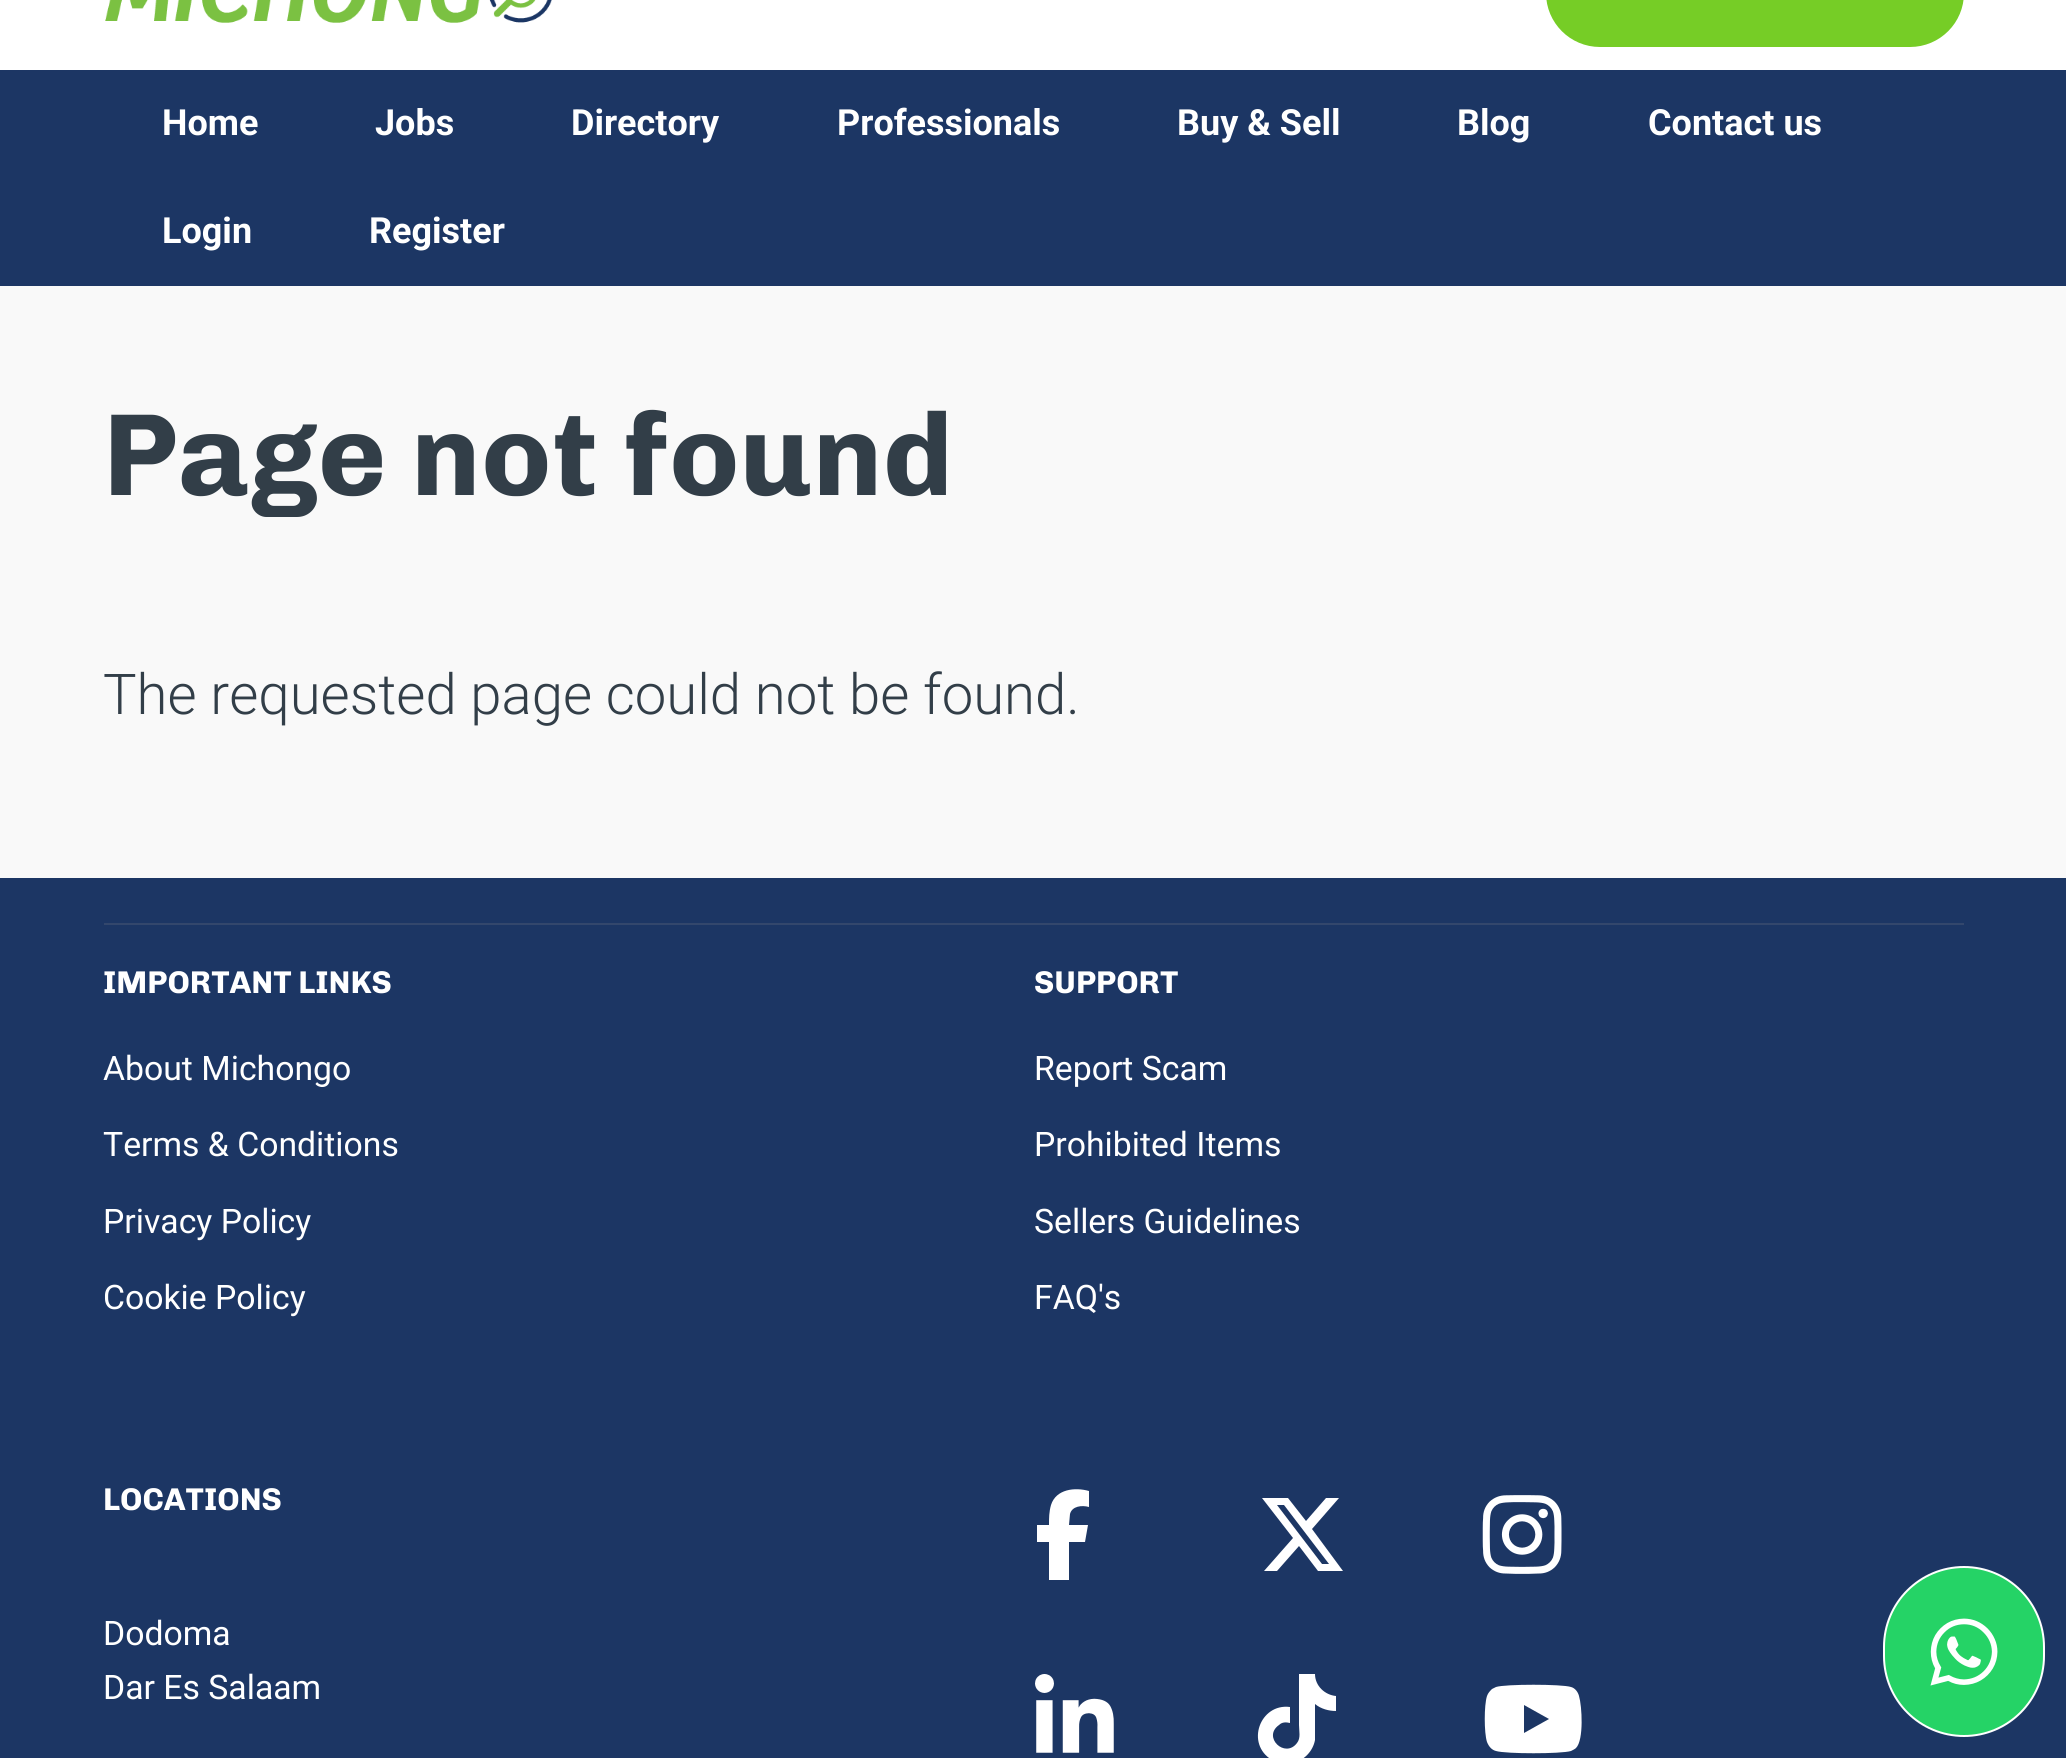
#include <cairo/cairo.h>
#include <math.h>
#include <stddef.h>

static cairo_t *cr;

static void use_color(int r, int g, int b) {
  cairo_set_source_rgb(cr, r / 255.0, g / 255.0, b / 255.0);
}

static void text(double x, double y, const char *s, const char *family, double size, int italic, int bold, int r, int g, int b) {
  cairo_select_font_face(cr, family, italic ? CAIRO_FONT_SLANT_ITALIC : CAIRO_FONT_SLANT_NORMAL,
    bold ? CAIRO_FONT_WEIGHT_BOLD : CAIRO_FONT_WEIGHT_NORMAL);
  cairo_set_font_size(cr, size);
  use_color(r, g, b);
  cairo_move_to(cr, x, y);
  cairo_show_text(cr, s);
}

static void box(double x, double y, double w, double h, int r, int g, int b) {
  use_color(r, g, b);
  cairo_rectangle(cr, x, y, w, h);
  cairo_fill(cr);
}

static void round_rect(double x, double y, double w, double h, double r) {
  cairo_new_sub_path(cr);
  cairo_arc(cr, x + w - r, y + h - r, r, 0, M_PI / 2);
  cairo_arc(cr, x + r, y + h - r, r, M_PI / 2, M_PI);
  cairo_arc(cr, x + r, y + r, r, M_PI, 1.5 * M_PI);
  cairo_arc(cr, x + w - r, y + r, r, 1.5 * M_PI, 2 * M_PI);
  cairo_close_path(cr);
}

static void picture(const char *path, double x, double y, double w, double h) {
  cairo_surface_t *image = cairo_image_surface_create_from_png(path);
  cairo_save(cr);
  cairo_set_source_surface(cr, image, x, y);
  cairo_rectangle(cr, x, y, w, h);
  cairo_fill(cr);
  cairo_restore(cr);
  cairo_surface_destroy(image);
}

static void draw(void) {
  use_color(255, 255, 255);
  cairo_paint(cr);
  picture("img_01.png", 105, 0, 447, 23);
  use_color(118, 205, 38);
  round_rect(1546, -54, 418, 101, 54);
  cairo_fill(cr);
  box(0, 70, 2066, 216, 28, 54, 100);
  box(0, 286, 2066, 592, 249, 249, 249);
  box(0, 878, 2066, 880, 28, 54, 100);
  box(104, 923, 1860, 2, 51, 71, 108);
  use_color(255, 255, 255);
  cairo_new_path(cr);
  cairo_move_to(cr, 1049, 1542);
  cairo_line_to(cr, 1049, 1580);
  cairo_line_to(cr, 1049, 1542);
  cairo_line_to(cr, 1049, 1580);
  cairo_line_to(cr, 1069, 1580);
  cairo_line_to(cr, 1069, 1542);
  cairo_line_to(cr, 1085, 1542);
  cairo_line_to(cr, 1088, 1525);
  cairo_line_to(cr, 1069, 1525);
  cairo_line_to(cr, 1070, 1514);
  cairo_curve_to(cr, 1072, 1506, 1082, 1505, 1089, 1507);
  cairo_line_to(cr, 1089, 1491);
  cairo_curve_to(cr, 1075, 1487, 1056, 1489, 1051, 1505);
  cairo_curve_to(cr, 1049, 1512, 1049, 1518, 1049, 1525);
  cairo_line_to(cr, 1037, 1525);
  cairo_line_to(cr, 1037, 1542);
  cairo_close_path(cr);
  cairo_fill(cr);
  cairo_new_path(cr);
  cairo_move_to(cr, 1326, 1498);
  cairo_line_to(cr, 1339, 1498);
  cairo_line_to(cr, 1326, 1498);
  cairo_line_to(cr, 1339, 1498);
  cairo_line_to(cr, 1312, 1529);
  cairo_line_to(cr, 1343, 1571);
  cairo_line_to(cr, 1318, 1571);
  cairo_line_to(cr, 1299, 1546);
  cairo_line_to(cr, 1277, 1571);
  cairo_line_to(cr, 1264, 1571);
  cairo_line_to(cr, 1293, 1538);
  cairo_line_to(cr, 1262, 1498);
  cairo_line_to(cr, 1288, 1498);
  cairo_line_to(cr, 1306, 1521);
  cairo_close_path(cr);
  cairo_move_to(cr, 1322, 1564);
  cairo_line_to(cr, 1329, 1564);
  cairo_line_to(cr, 1322, 1564);
  cairo_line_to(cr, 1329, 1564);
  cairo_line_to(cr, 1284, 1505);
  cairo_line_to(cr, 1277, 1505);
  cairo_close_path(cr);
  cairo_fill(cr);
  picture("img_02.png", 1482, 1495, 80, 79);
  picture("img_03.png", 1035, 1674, 79, 79);
  cairo_new_path(cr);
  cairo_move_to(cr, 1336, 1711);
  cairo_curve_to(cr, 1329, 1711, 1321, 1709, 1315, 1704);
  cairo_line_to(cr, 1315, 1740);
  cairo_curve_to(cr, 1313, 1751, 1304, 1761, 1292, 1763);
  cairo_curve_to(cr, 1285, 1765, 1278, 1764, 1272, 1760);
  cairo_curve_to(cr, 1245, 1744, 1260, 1703, 1290, 1707);
  cairo_line_to(cr, 1290, 1723);
  cairo_curve_to(cr, 1286, 1722, 1282, 1722, 1279, 1725);
  cairo_curve_to(cr, 1262, 1737, 1285, 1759, 1297, 1743);
  cairo_curve_to(cr, 1301, 1738, 1299, 1731, 1299, 1725);
  cairo_line_to(cr, 1299, 1674);
  cairo_line_to(cr, 1315, 1674);
  cairo_curve_to(cr, 1315, 1686, 1325, 1695, 1336, 1696);
  cairo_close_path(cr);
  cairo_fill(cr);
  cairo_new_path(cr);
  cairo_move_to(cr, 1579, 1696);
  cairo_curve_to(cr, 1578, 1692, 1575, 1688, 1571, 1687);
  cairo_curve_to(cr, 1562, 1684, 1505, 1684, 1496, 1687);
  cairo_line_to(cr, 1492, 1689);
  cairo_curve_to(cr, 1490, 1691, 1488, 1693, 1487, 1696);
  cairo_curve_to(cr, 1484, 1705, 1484, 1733, 1487, 1742);
  cairo_curve_to(cr, 1489, 1747, 1492, 1750, 1496, 1751);
  cairo_curve_to(cr, 1506, 1754, 1561, 1754, 1571, 1751);
  cairo_curve_to(cr, 1573, 1750, 1575, 1749, 1576, 1748);
  cairo_curve_to(cr, 1584, 1740, 1582, 1706, 1579, 1696);
  cairo_close_path(cr);
  cairo_move_to(cr, 1524, 1733);
  cairo_line_to(cr, 1524, 1705);
  cairo_line_to(cr, 1524, 1733);
  cairo_line_to(cr, 1524, 1705);
  cairo_line_to(cr, 1549, 1719);
  cairo_close_path(cr);
  cairo_fill(cr);
  use_color(37, 211, 102);
  round_rect(1884, 1567, 160, 169, 80);
  cairo_fill_preserve(cr);
  use_color(255, 255, 255);
  cairo_stroke(cr);
  picture("img_04.png", 1930, 1618, 68, 68);
  text(162, 135, "Home", "Roboto", 36, 0, 1, 255, 255, 255);
  text(375, 135, "Jobs", "Roboto", 36, 0, 1, 255, 255, 255);
  text(571, 135, "Directory", "Roboto", 36, 0, 1, 255, 255, 255);
  text(837, 135, "Professionals", "Roboto", 36, 0, 1, 255, 255, 255);
  text(1177, 135, "Buy & Sell", "Roboto", 36, 0, 1, 255, 255, 255);
  text(1457, 135, "Blog", "Roboto", 36, 0, 1, 255, 255, 255);
  text(1648, 135, "Contact us", "Roboto", 36, 0, 1, 255, 255, 255);
  text(162, 243, "Login", "Roboto", 36, 0, 1, 255, 255, 255);
  text(369, 243, "Register", "Roboto", 36, 0, 1, 255, 255, 255);
  text(103, 495, "Page not found", "Chivo Medium", 117, 0, 0, 50, 62, 72);
  text(103, 714, "The requested page could not be found.", "Roboto Light", 56.25, 0, 0, 50, 62, 72);
  text(103, 993, "IMPORTANT LINKS", "Chivo Medium", 31.5, 0, 0, 255, 255, 255);
  text(103, 1080, "About Michongo", "Roboto", 33.75, 0, 0, 255, 255, 255);
  text(103, 1156, "Terms & Conditions", "Roboto", 33.75, 0, 0, 255, 255, 255);
  text(103, 1233, "Privacy Policy", "Roboto", 33.75, 0, 0, 255, 255, 255);
  text(103, 1309, "Cookie Policy", "Roboto", 33.75, 0, 0, 255, 255, 255);
  text(1034, 993, "SUPPORT", "Chivo Medium", 31.5, 0, 0, 255, 255, 255);
  text(1034, 1080, "Report Scam", "Roboto", 33.75, 0, 0, 255, 255, 255);
  text(1034, 1156, "Prohibited Items", "Roboto", 33.75, 0, 0, 255, 255, 255);
  text(1034, 1233, "Sellers Guidelines", "Roboto", 33.75, 0, 0, 255, 255, 255);
  text(1034, 1309, "FAQ's", "Roboto", 33.75, 0, 0, 255, 255, 255);
  text(103, 1510, "LOCATIONS", "Chivo Medium", 31.5, 0, 0, 255, 255, 255);
  text(103, 1645, "Dodoma", "Roboto", 33.75, 0, 0, 255, 255, 255);
  text(103, 1699, "Dar Es Salaam", "Roboto", 33.75, 0, 0, 255, 255, 255);
}

int main(void) {
  cairo_surface_t *surface = cairo_image_surface_create(CAIRO_FORMAT_RGB24, 2066, 1758);
  cr = cairo_create(surface);
  cairo_font_options_t *options = cairo_font_options_create();
  cairo_font_options_set_hint_metrics(options, CAIRO_HINT_METRICS_OFF);
  cairo_font_options_set_hint_style(options, CAIRO_HINT_STYLE_NONE);
  cairo_set_font_options(cr, options);
  cairo_set_miter_limit(cr, 4);
  draw();
  cairo_surface_write_to_png(surface, "out.png");
  cairo_font_options_destroy(options);
  cairo_destroy(cr);
  cairo_surface_destroy(surface);
  return 0;
}
